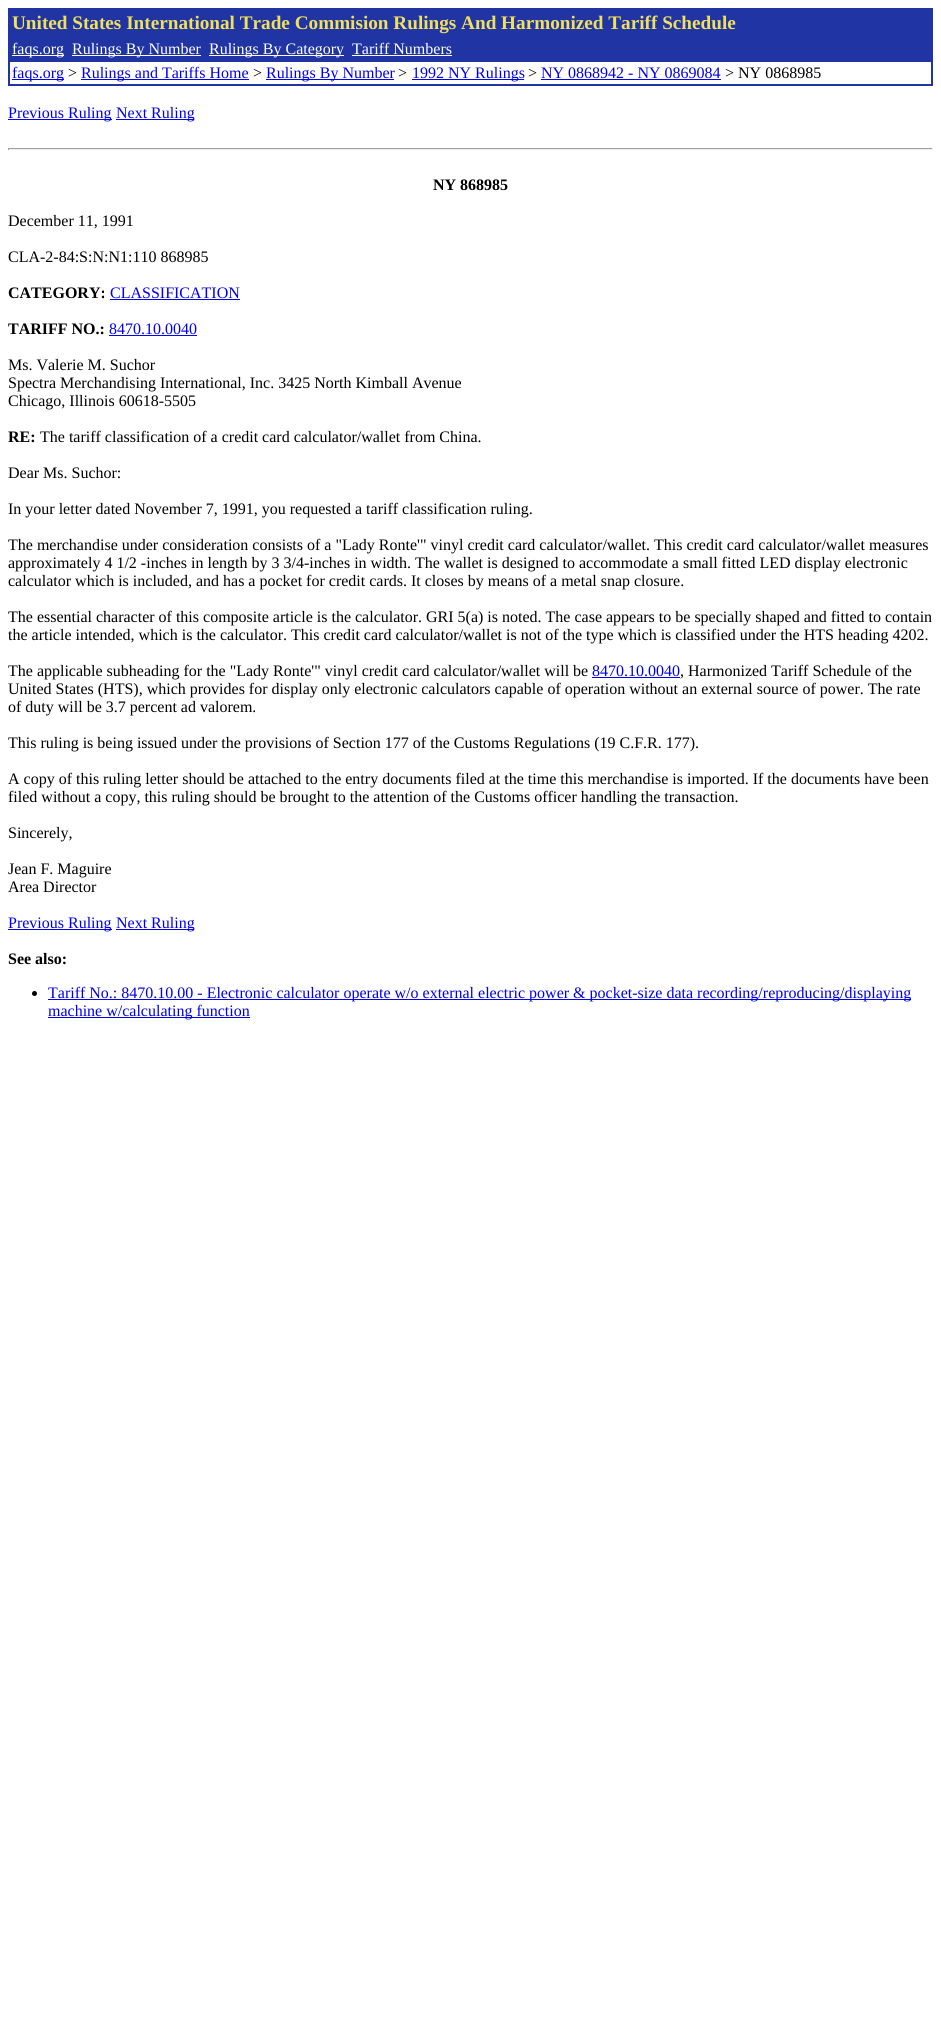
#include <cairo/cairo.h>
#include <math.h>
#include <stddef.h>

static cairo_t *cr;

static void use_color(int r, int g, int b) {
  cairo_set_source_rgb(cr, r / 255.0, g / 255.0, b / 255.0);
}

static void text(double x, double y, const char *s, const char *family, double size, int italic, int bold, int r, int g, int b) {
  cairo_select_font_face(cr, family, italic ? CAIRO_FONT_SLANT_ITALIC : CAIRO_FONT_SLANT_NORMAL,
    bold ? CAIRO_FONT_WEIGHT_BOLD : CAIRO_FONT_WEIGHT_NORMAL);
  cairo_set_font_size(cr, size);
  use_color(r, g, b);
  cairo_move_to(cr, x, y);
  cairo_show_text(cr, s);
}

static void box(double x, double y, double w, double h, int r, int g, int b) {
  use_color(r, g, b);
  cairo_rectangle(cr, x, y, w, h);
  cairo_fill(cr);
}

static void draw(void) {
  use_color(255, 255, 255);
  cairo_paint(cr);
  box(8, 8, 925, 78, 33, 52, 163);
  box(12, 55, 52, 1, 255, 255, 255);
  box(72, 55, 129, 1, 255, 255, 255);
  box(209, 55, 135, 1, 255, 255, 255);
  box(352, 55, 100, 1, 255, 255, 255);
  box(10, 62, 921, 22, 255, 255, 255);
  box(12, 79, 52, 1, 0, 0, 238);
  box(81, 79, 168, 1, 0, 0, 238);
  box(266, 79, 128, 1, 0, 0, 238);
  box(412, 79, 112, 1, 0, 0, 238);
  box(541, 79, 180, 1, 0, 0, 238);
  box(8, 119, 104, 1, 0, 0, 238);
  box(116, 119, 78, 1, 0, 0, 238);
  box(8, 148, 925, 1, 159, 159, 159);
  box(932, 148, 1, 2, 238, 238, 238);
  box(8, 149, 925, 1, 238, 238, 238);
  box(8, 148, 1, 2, 159, 159, 159);
  box(110, 299, 130, 1, 0, 0, 238);
  box(109, 335, 88, 1, 0, 0, 238);
  box(592, 677, 88, 1, 0, 0, 238);
  box(8, 929, 104, 1, 0, 0, 238);
  box(116, 929, 78, 1, 0, 0, 238);
  use_color(0, 0, 0);
  cairo_arc(cr, 34.5, 993.5, 2.5, 0, 2 * M_PI);
  cairo_fill(cr);
  box(48, 999, 863, 1, 0, 0, 238);
  box(48, 1017, 202, 1, 0, 0, 238);
  text(12, 29, "United States International Trade Commision Rulings And Harmonized Tariff Schedule", "Liberation Serif", 19.2, 0, 1, 239, 225, 93);
  text(12, 54, "faqs.org", "Liberation Serif", 16, 0, 0, 255, 255, 255);
  text(72, 54, "Rulings By Number", "Liberation Serif", 16, 0, 0, 255, 255, 255);
  text(209, 54, "Rulings By Category", "Liberation Serif", 16, 0, 0, 255, 255, 255);
  text(352, 54, "Tariff Numbers", "Liberation Serif", 16, 0, 0, 255, 255, 255);
  text(12, 78, "faqs.org", "Liberation Serif", 16, 0, 0, 0, 0, 238);
  text(68, 78, ">", "Liberation Serif", 16, 0, 0, 0, 0, 0);
  text(81, 78, "Rulings and Tariffs Home", "Liberation Serif", 16, 0, 0, 0, 0, 238);
  text(253, 78, ">", "Liberation Serif", 16, 0, 0, 0, 0, 0);
  text(266, 78, "Rulings By Number", "Liberation Serif", 16, 0, 0, 0, 0, 238);
  text(398, 78, ">", "Liberation Serif", 16, 0, 0, 0, 0, 0);
  text(412, 78, "1992 NY Rulings", "Liberation Serif", 16, 0, 0, 0, 0, 238);
  text(528, 78, ">", "Liberation Serif", 16, 0, 0, 0, 0, 0);
  text(541, 78, "NY 0868942 - NY 0869084", "Liberation Serif", 16, 0, 0, 0, 0, 238);
  text(725, 78, "> NY 0868985", "Liberation Serif", 16, 0, 0, 0, 0, 0);
  text(8, 118, "Previous Ruling", "Liberation Serif", 16, 0, 0, 0, 0, 238);
  text(116, 118, "Next Ruling", "Liberation Serif", 16, 0, 0, 0, 0, 238);
  text(433, 190, "NY 868985", "Liberation Serif", 16, 0, 1, 0, 0, 0);
  text(8, 226, "December 11, 1991", "Liberation Serif", 16, 0, 0, 0, 0, 0);
  text(8, 262, "CLA-2-84:S:N:N1:110 868985", "Liberation Serif", 16, 0, 0, 0, 0, 0);
  text(8, 298, "CATEGORY:", "Liberation Serif", 16, 0, 1, 0, 0, 0);
  text(110, 298, "CLASSIFICATION", "Liberation Serif", 16, 0, 0, 0, 0, 238);
  text(8, 334, "TARIFF NO.:", "Liberation Serif", 16, 0, 1, 0, 0, 0);
  text(109, 334, "8470.10.0040", "Liberation Serif", 16, 0, 0, 0, 0, 238);
  text(8, 370, "Ms. Valerie M. Suchor", "Liberation Serif", 16, 0, 0, 0, 0, 0);
  text(8, 388, "Spectra Merchandising International, Inc. 3425 North Kimball Avenue", "Liberation Serif", 16, 0, 0, 0, 0, 0);
  text(8, 406, "Chicago, Illinois 60618-5505", "Liberation Serif", 16, 0, 0, 0, 0, 0);
  text(8, 442, "RE:", "Liberation Serif", 16, 0, 1, 0, 0, 0);
  text(40, 442, "The tariff classification of a credit card calculator/wallet from China.", "Liberation Serif", 16, 0, 0, 0, 0, 0);
  text(8, 478, "Dear Ms. Suchor:", "Liberation Serif", 16, 0, 0, 0, 0, 0);
  text(8, 514, "In your letter dated November 7, 1991, you requested a tariff classification ruling.", "Liberation Serif", 16, 0, 0, 0, 0, 0);
  text(8, 550, "The merchandise under consideration consists of a \"Lady Ronte'\" vinyl credit card calculator/wallet. This credit card calculator/wallet measures", "Liberation Serif", 16, 0, 0, 0, 0, 0);
  text(8, 568, "approximately 4 1/2 -inches in length by 3 3/4-inches in width. The wallet is designed to accommodate a small fitted LED display electronic", "Liberation Serif", 16, 0, 0, 0, 0, 0);
  text(8, 586, "calculator which is included, and has a pocket for credit cards. It closes by means of a metal snap closure.", "Liberation Serif", 16, 0, 0, 0, 0, 0);
  text(8, 622, "The essential character of this composite article is the calculator. GRI 5(a) is noted. The case appears to be specially shaped and fitted to contain", "Liberation Serif", 16, 0, 0, 0, 0, 0);
  text(8, 640, "the article intended, which is the calculator. This credit card calculator/wallet is not of the type which is classified under the HTS heading 4202.", "Liberation Serif", 16, 0, 0, 0, 0, 0);
  text(8, 676, "The applicable subheading for the \"Lady Ronte'\" vinyl credit card calculator/wallet will be", "Liberation Serif", 16, 0, 0, 0, 0, 0);
  text(592, 676, "8470.10.0040", "Liberation Serif", 16, 0, 0, 0, 0, 238);
  text(680, 676, ", Harmonized Tariff Schedule of the", "Liberation Serif", 16, 0, 0, 0, 0, 0);
  text(8, 694, "United States (HTS), which provides for display only electronic calculators capable of operation without an external source of power. The rate", "Liberation Serif", 16, 0, 0, 0, 0, 0);
  text(8, 712, "of duty will be 3.7 percent ad valorem.", "Liberation Serif", 16, 0, 0, 0, 0, 0);
  text(8, 748, "This ruling is being issued under the provisions of Section 177 of the Customs Regulations (19 C.F.R. 177).", "Liberation Serif", 16, 0, 0, 0, 0, 0);
  text(8, 784, "A copy of this ruling letter should be attached to the entry documents filed at the time this merchandise is imported. If the documents have been", "Liberation Serif", 16, 0, 0, 0, 0, 0);
  text(8, 802, "filed without a copy, this ruling should be brought to the attention of the Customs officer handling the transaction.", "Liberation Serif", 16, 0, 0, 0, 0, 0);
  text(8, 838, "Sincerely,", "Liberation Serif", 16, 0, 0, 0, 0, 0);
  text(8, 874, "Jean F. Maguire", "Liberation Serif", 16, 0, 0, 0, 0, 0);
  text(8, 892, "Area Director", "Liberation Serif", 16, 0, 0, 0, 0, 0);
  text(8, 928, "Previous Ruling", "Liberation Serif", 16, 0, 0, 0, 0, 238);
  text(116, 928, "Next Ruling", "Liberation Serif", 16, 0, 0, 0, 0, 238);
  text(8, 964, "See also:", "Liberation Serif", 16, 0, 1, 0, 0, 0);
  text(48, 998, "Tariff No.: 8470.10.00 - Electronic calculator operate w/o external electric power & pocket-size data recording/reproducing/displaying", "Liberation Serif", 16, 0, 0, 0, 0, 238);
  text(48, 1016, "machine w/calculating function", "Liberation Serif", 16, 0, 0, 0, 0, 238);
}

int main(void) {
  cairo_surface_t *surface = cairo_image_surface_create(CAIRO_FORMAT_RGB24, 941, 2043);
  cr = cairo_create(surface);
  cairo_font_options_t *options = cairo_font_options_create();
  cairo_font_options_set_hint_metrics(options, CAIRO_HINT_METRICS_OFF);
  cairo_font_options_set_hint_style(options, CAIRO_HINT_STYLE_NONE);
  cairo_set_font_options(cr, options);
  cairo_set_miter_limit(cr, 4);
  draw();
  cairo_surface_write_to_png(surface, "out.png");
  cairo_font_options_destroy(options);
  cairo_destroy(cr);
  cairo_surface_destroy(surface);
  return 0;
}
